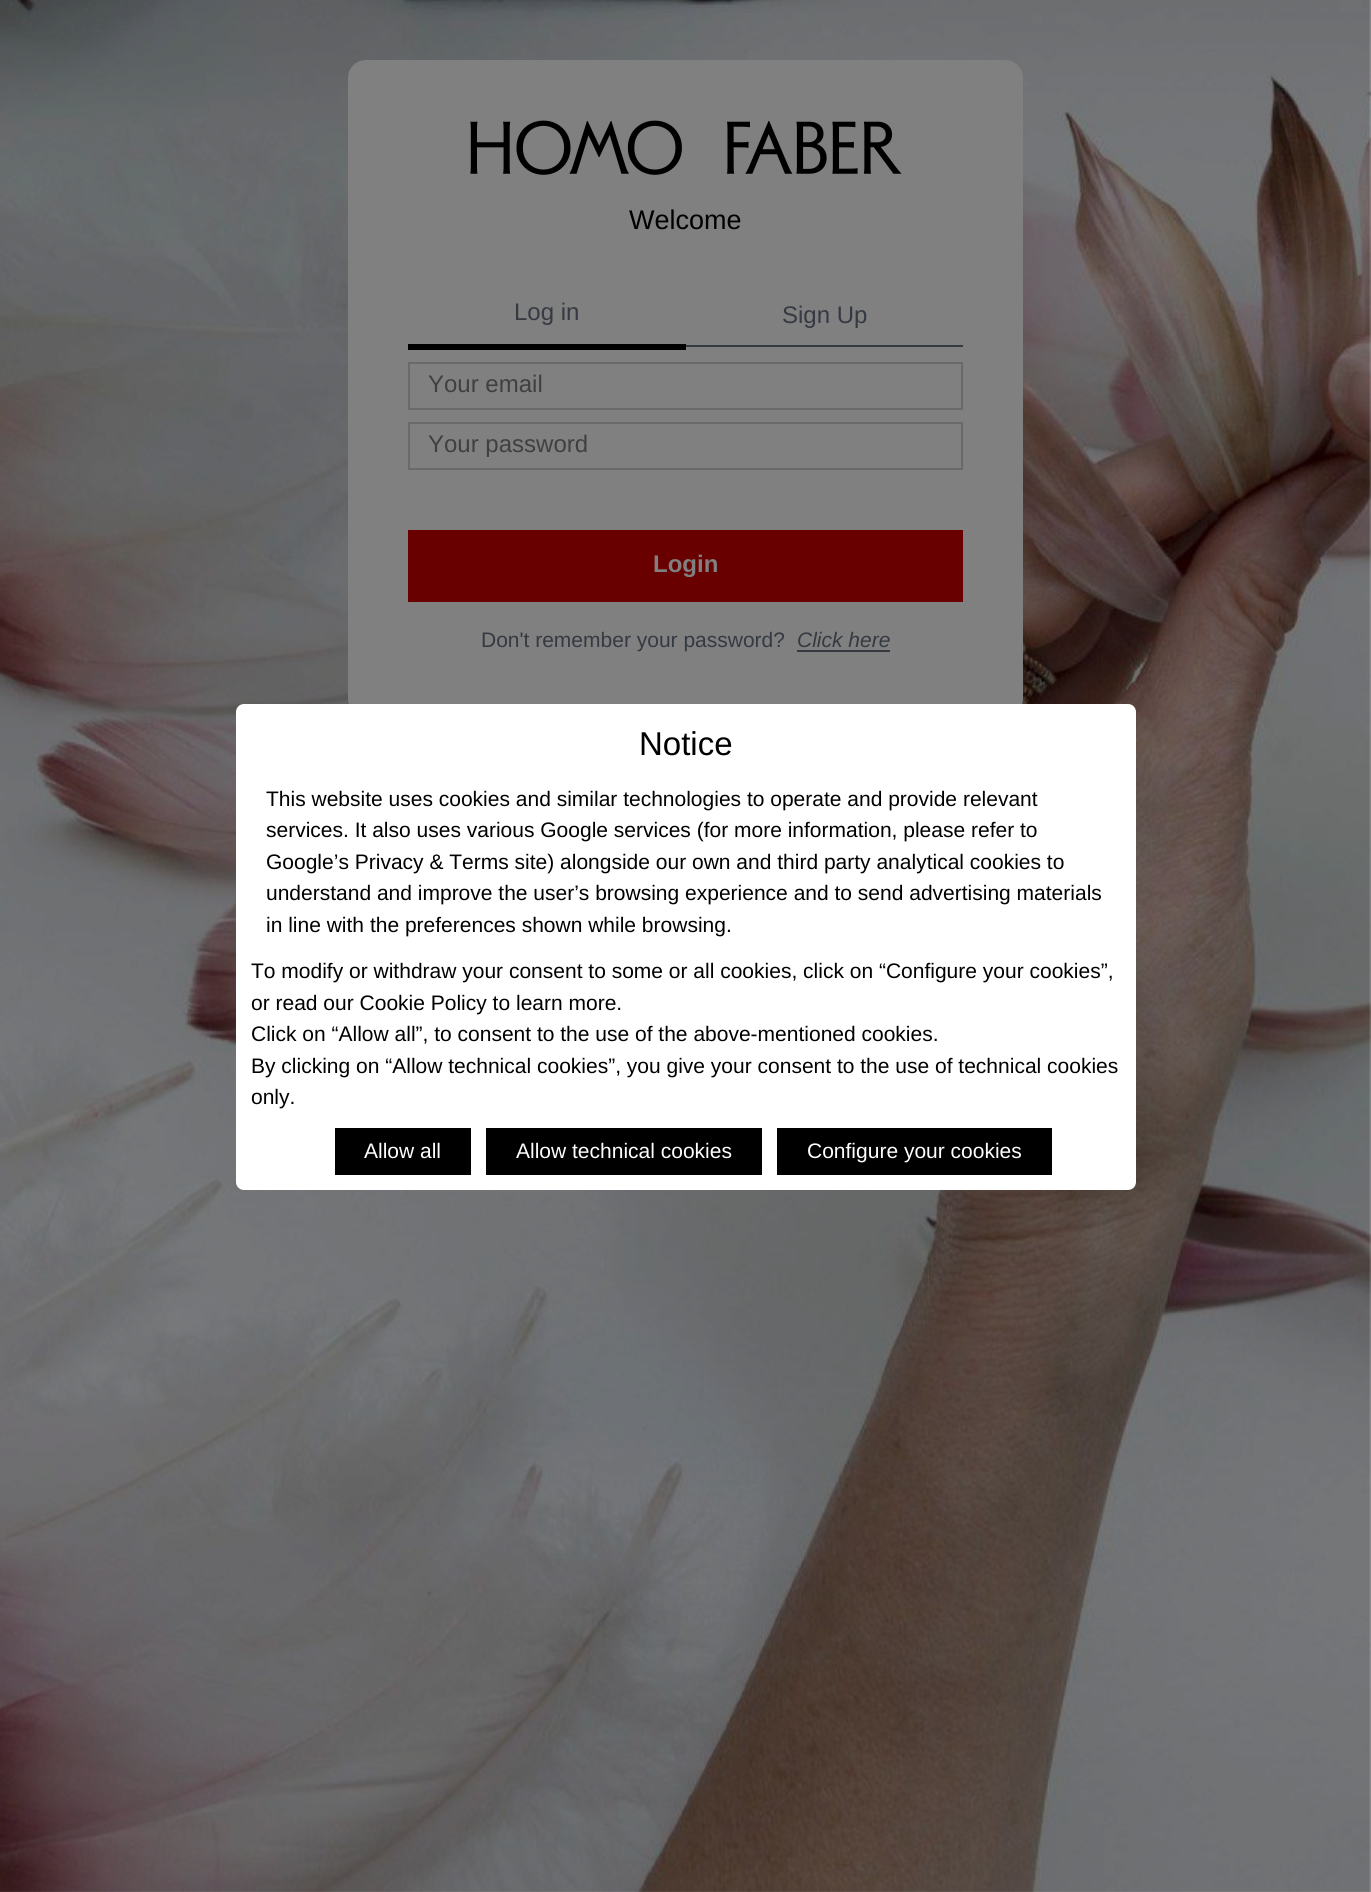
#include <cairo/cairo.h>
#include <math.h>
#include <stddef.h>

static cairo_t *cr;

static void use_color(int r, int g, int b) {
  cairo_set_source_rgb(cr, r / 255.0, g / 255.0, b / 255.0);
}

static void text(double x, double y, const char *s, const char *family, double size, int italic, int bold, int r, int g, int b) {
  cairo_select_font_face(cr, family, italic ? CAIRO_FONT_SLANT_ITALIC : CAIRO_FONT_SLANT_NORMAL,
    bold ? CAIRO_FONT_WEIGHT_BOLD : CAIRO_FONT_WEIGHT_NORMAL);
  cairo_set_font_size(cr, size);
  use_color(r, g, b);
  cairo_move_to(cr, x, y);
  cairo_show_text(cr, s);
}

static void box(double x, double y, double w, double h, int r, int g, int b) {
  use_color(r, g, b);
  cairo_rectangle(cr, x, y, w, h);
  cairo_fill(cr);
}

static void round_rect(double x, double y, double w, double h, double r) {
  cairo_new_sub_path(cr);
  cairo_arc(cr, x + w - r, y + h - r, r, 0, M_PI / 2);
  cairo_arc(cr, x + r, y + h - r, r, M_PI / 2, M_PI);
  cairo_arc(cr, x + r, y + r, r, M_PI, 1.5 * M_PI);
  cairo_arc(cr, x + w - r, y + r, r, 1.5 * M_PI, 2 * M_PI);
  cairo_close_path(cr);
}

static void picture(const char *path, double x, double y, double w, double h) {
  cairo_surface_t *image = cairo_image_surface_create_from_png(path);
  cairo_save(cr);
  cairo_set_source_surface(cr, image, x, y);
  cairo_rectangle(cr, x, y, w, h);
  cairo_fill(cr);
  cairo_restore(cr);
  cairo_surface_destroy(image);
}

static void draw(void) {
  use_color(255, 255, 255);
  cairo_paint(cr);
  picture("img_01.png", 0, 0, 1371, 1892);
  use_color(128, 128, 128);
  round_rect(348, 60, 675, 656, 18);
  cairo_fill(cr);
  picture("img_02.png", 470, 120, 432, 55);
  box(408, 344, 278, 6, 0, 0, 0);
  box(686, 345, 277, 2, 53, 57, 65);
  cairo_rectangle(cr, 409, 363, 553, 46);
  use_color(106, 106, 106);
  cairo_stroke(cr);
  cairo_rectangle(cr, 409, 423, 553, 46);
  cairo_stroke(cr);
  box(408, 530, 555, 72, 105, 0, 0);
  box(797, 650, 93, 2, 53, 57, 65);
  use_color(255, 255, 255);
  round_rect(236, 704, 900, 486, 8);
  cairo_fill(cr);
  box(335, 1128, 136, 47, 0, 0, 0);
  box(486, 1128, 276, 47, 0, 0, 0);
  box(777, 1128, 275, 47, 0, 0, 0);
  text(629, 229, "Welcome", "Liberation Sans", 27, 0, 0, 0, 0, 0);
  text(514, 320, "Log in", "Liberation Sans", 24, 0, 0, 53, 57, 65);
  text(782, 323, "Sign Up", "Liberation Sans", 24, 0, 0, 53, 57, 65);
  text(428, 392, "Your email", "Liberation Sans", 24, 0, 0, 64, 64, 64);
  text(428, 452, "Your password", "Liberation Sans", 24, 0, 0, 64, 64, 64);
  text(653, 572, "Login", "Liberation Sans", 24, 0, 1, 128, 128, 128);
  text(481, 647, "Don't remember your password?", "Liberation Sans", 21, 0, 0, 53, 57, 65);
  text(797, 647, "Click here", "Liberation Sans", 21, 1, 0, 53, 57, 65);
  text(639, 755, "Notice", "Liberation Sans", 33, 0, 0, 0, 0, 0);
  text(266, 806, "This website uses cookies and similar technologies to operate and provide relevant", "Liberation Sans", 21, 0, 0, 0, 0, 0);
  text(266, 837, "services. It also uses various Google services (for more information, please refer to", "Liberation Sans", 21, 0, 0, 0, 0, 0);
  text(266, 869, "Google’s Privacy & Terms site) alongside our own and third party analytical cookies to", "Liberation Sans", 21, 0, 0, 0, 0, 0);
  text(266, 900, "understand and improve the user’s browsing experience and to send advertising materials", "Liberation Sans", 21, 0, 0, 0, 0, 0);
  text(266, 932, "in line with the preferences shown while browsing.", "Liberation Sans", 21, 0, 0, 0, 0, 0);
  text(251, 978, "To modify or withdraw your consent to some or all cookies, click on “Configure your cookies”,", "Liberation Sans", 21, 0, 0, 0, 0, 0);
  text(251, 1010, "or read our Cookie Policy to learn more.", "Liberation Sans", 21, 0, 0, 0, 0, 0);
  text(251, 1041, "Click on “Allow all”, to consent to the use of the above-mentioned cookies.", "Liberation Sans", 21, 0, 0, 0, 0, 0);
  text(251, 1073, "By clicking on “Allow technical cookies”, you give your consent to the use of technical cookies", "Liberation Sans", 21, 0, 0, 0, 0, 0);
  text(251, 1104, "only.", "Liberation Sans", 21, 0, 0, 0, 0, 0);
  text(364, 1158, "Allow all", "Liberation Sans", 21, 0, 0, 255, 255, 255);
  text(516, 1158, "Allow technical cookies", "Liberation Sans", 21, 0, 0, 255, 255, 255);
  text(807, 1158, "Configure your cookies", "Liberation Sans", 21, 0, 0, 255, 255, 255);
}

int main(void) {
  cairo_surface_t *surface = cairo_image_surface_create(CAIRO_FORMAT_RGB24, 1371, 1892);
  cr = cairo_create(surface);
  cairo_font_options_t *options = cairo_font_options_create();
  cairo_font_options_set_hint_metrics(options, CAIRO_HINT_METRICS_OFF);
  cairo_font_options_set_hint_style(options, CAIRO_HINT_STYLE_NONE);
  cairo_set_font_options(cr, options);
  cairo_set_miter_limit(cr, 4);
  draw();
  cairo_surface_write_to_png(surface, "out.png");
  cairo_font_options_destroy(options);
  cairo_destroy(cr);
  cairo_surface_destroy(surface);
  return 0;
}
